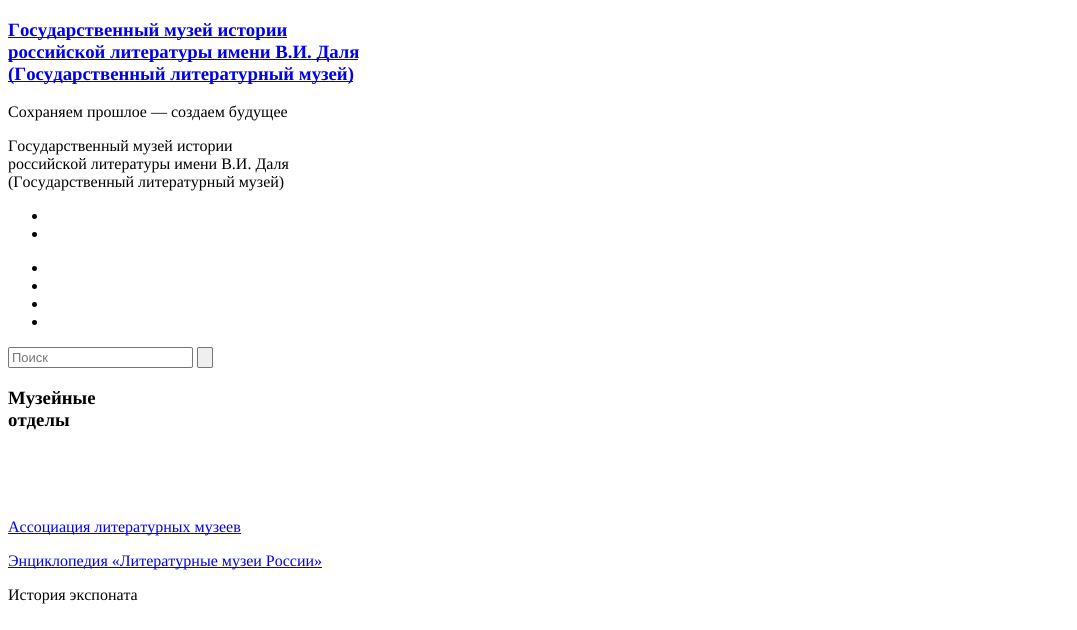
#include <cairo/cairo.h>
#include <math.h>
#include <stddef.h>

static cairo_t *cr;

static void use_color(int r, int g, int b) {
  cairo_set_source_rgb(cr, r / 255.0, g / 255.0, b / 255.0);
}

static void text(double x, double y, const char *s, const char *family, double size, int italic, int bold, int r, int g, int b) {
  cairo_select_font_face(cr, family, italic ? CAIRO_FONT_SLANT_ITALIC : CAIRO_FONT_SLANT_NORMAL,
    bold ? CAIRO_FONT_WEIGHT_BOLD : CAIRO_FONT_WEIGHT_NORMAL);
  cairo_set_font_size(cr, size);
  use_color(r, g, b);
  cairo_move_to(cr, x, y);
  cairo_show_text(cr, s);
}

static void box(double x, double y, double w, double h, int r, int g, int b) {
  use_color(r, g, b);
  cairo_rectangle(cr, x, y, w, h);
  cairo_fill(cr);
}

static void round_rect(double x, double y, double w, double h, double r) {
  cairo_new_sub_path(cr);
  cairo_arc(cr, x + w - r, y + h - r, r, 0, M_PI / 2);
  cairo_arc(cr, x + r, y + h - r, r, M_PI / 2, M_PI);
  cairo_arc(cr, x + r, y + r, r, M_PI, 1.5 * M_PI);
  cairo_arc(cr, x + w - r, y + r, r, 1.5 * M_PI, 2 * M_PI);
  cairo_close_path(cr);
}

static void draw(void) {
  use_color(255, 255, 255);
  cairo_paint(cr);
  box(8, 37, 279, 1, 0, 0, 238);
  box(8, 59, 350, 1, 0, 0, 238);
  box(8, 81, 345, 1, 0, 0, 238);
  use_color(0, 0, 0);
  cairo_arc(cr, 34.5, 216.5, 2.5, 0, 2 * M_PI);
  cairo_fill(cr);
  cairo_arc(cr, 34.5, 234.5, 2.5, 0, 2 * M_PI);
  cairo_fill(cr);
  cairo_arc(cr, 34.5, 268.5, 2.5, 0, 2 * M_PI);
  cairo_fill(cr);
  cairo_arc(cr, 34.5, 286.5, 2.5, 0, 2 * M_PI);
  cairo_fill(cr);
  cairo_arc(cr, 34.5, 304.5, 2.5, 0, 2 * M_PI);
  cairo_fill(cr);
  cairo_arc(cr, 34.5, 322.5, 2.5, 0, 2 * M_PI);
  cairo_fill(cr);
  round_rect(8.5, 347.5, 184, 20, 1.5);
  use_color(118, 118, 118);
  cairo_set_line_width(cr, 1);
  cairo_stroke(cr);
  use_color(239, 239, 239);
  round_rect(197.5, 347.5, 15, 20, 1.5);
  cairo_fill_preserve(cr);
  use_color(118, 118, 118);
  cairo_stroke(cr);
  box(8, 533, 233, 1, 0, 0, 238);
  box(8, 567, 314, 1, 0, 0, 238);
  text(8, 36, "Государственный музей истории", "Liberation Serif", 18.75, 0, 1, 0, 0, 238);
  text(8, 58, "российской литературы имени В.И. Даля", "Liberation Serif", 18.75, 0, 1, 0, 0, 238);
  text(8, 80, "(Государственный литературный музей)", "Liberation Serif", 18.75, 0, 1, 0, 0, 238);
  text(8, 117, "Сохраняем прошлое — создаем будущее", "Liberation Serif", 16, 0, 0, 0, 0, 0);
  text(8, 151, "Государственный музей истории", "Liberation Serif", 16, 0, 0, 0, 0, 0);
  text(8, 169, "российской литературы имени В.И. Даля", "Liberation Serif", 16, 0, 0, 0, 0, 0);
  text(8, 187, "(Государственный литературный музей)", "Liberation Serif", 16, 0, 0, 0, 0, 0);
  text(12, 362, "Поиск", "Liberation Sans", 13, 0, 0, 117, 117, 117);
  text(8, 404, "Музейные", "Liberation Serif", 18.75, 0, 1, 0, 0, 0);
  text(8, 426, "отделы", "Liberation Serif", 18.75, 0, 1, 0, 0, 0);
  text(8, 532, "Ассоциация литературных музеев", "Liberation Serif", 16, 0, 0, 0, 0, 238);
  text(8, 566, "Энциклопедия «Литературные музеи России»", "Liberation Serif", 16, 0, 0, 0, 0, 238);
  text(8, 600, "История экспоната", "Liberation Serif", 16, 0, 0, 0, 0, 0);
}

int main(void) {
  cairo_surface_t *surface = cairo_image_surface_create(CAIRO_FORMAT_RGB24, 1077, 630);
  cr = cairo_create(surface);
  cairo_font_options_t *options = cairo_font_options_create();
  cairo_font_options_set_hint_metrics(options, CAIRO_HINT_METRICS_OFF);
  cairo_font_options_set_hint_style(options, CAIRO_HINT_STYLE_NONE);
  cairo_set_font_options(cr, options);
  cairo_set_miter_limit(cr, 4);
  draw();
  cairo_surface_write_to_png(surface, "out.png");
  cairo_font_options_destroy(options);
  cairo_destroy(cr);
  cairo_surface_destroy(surface);
  return 0;
}
